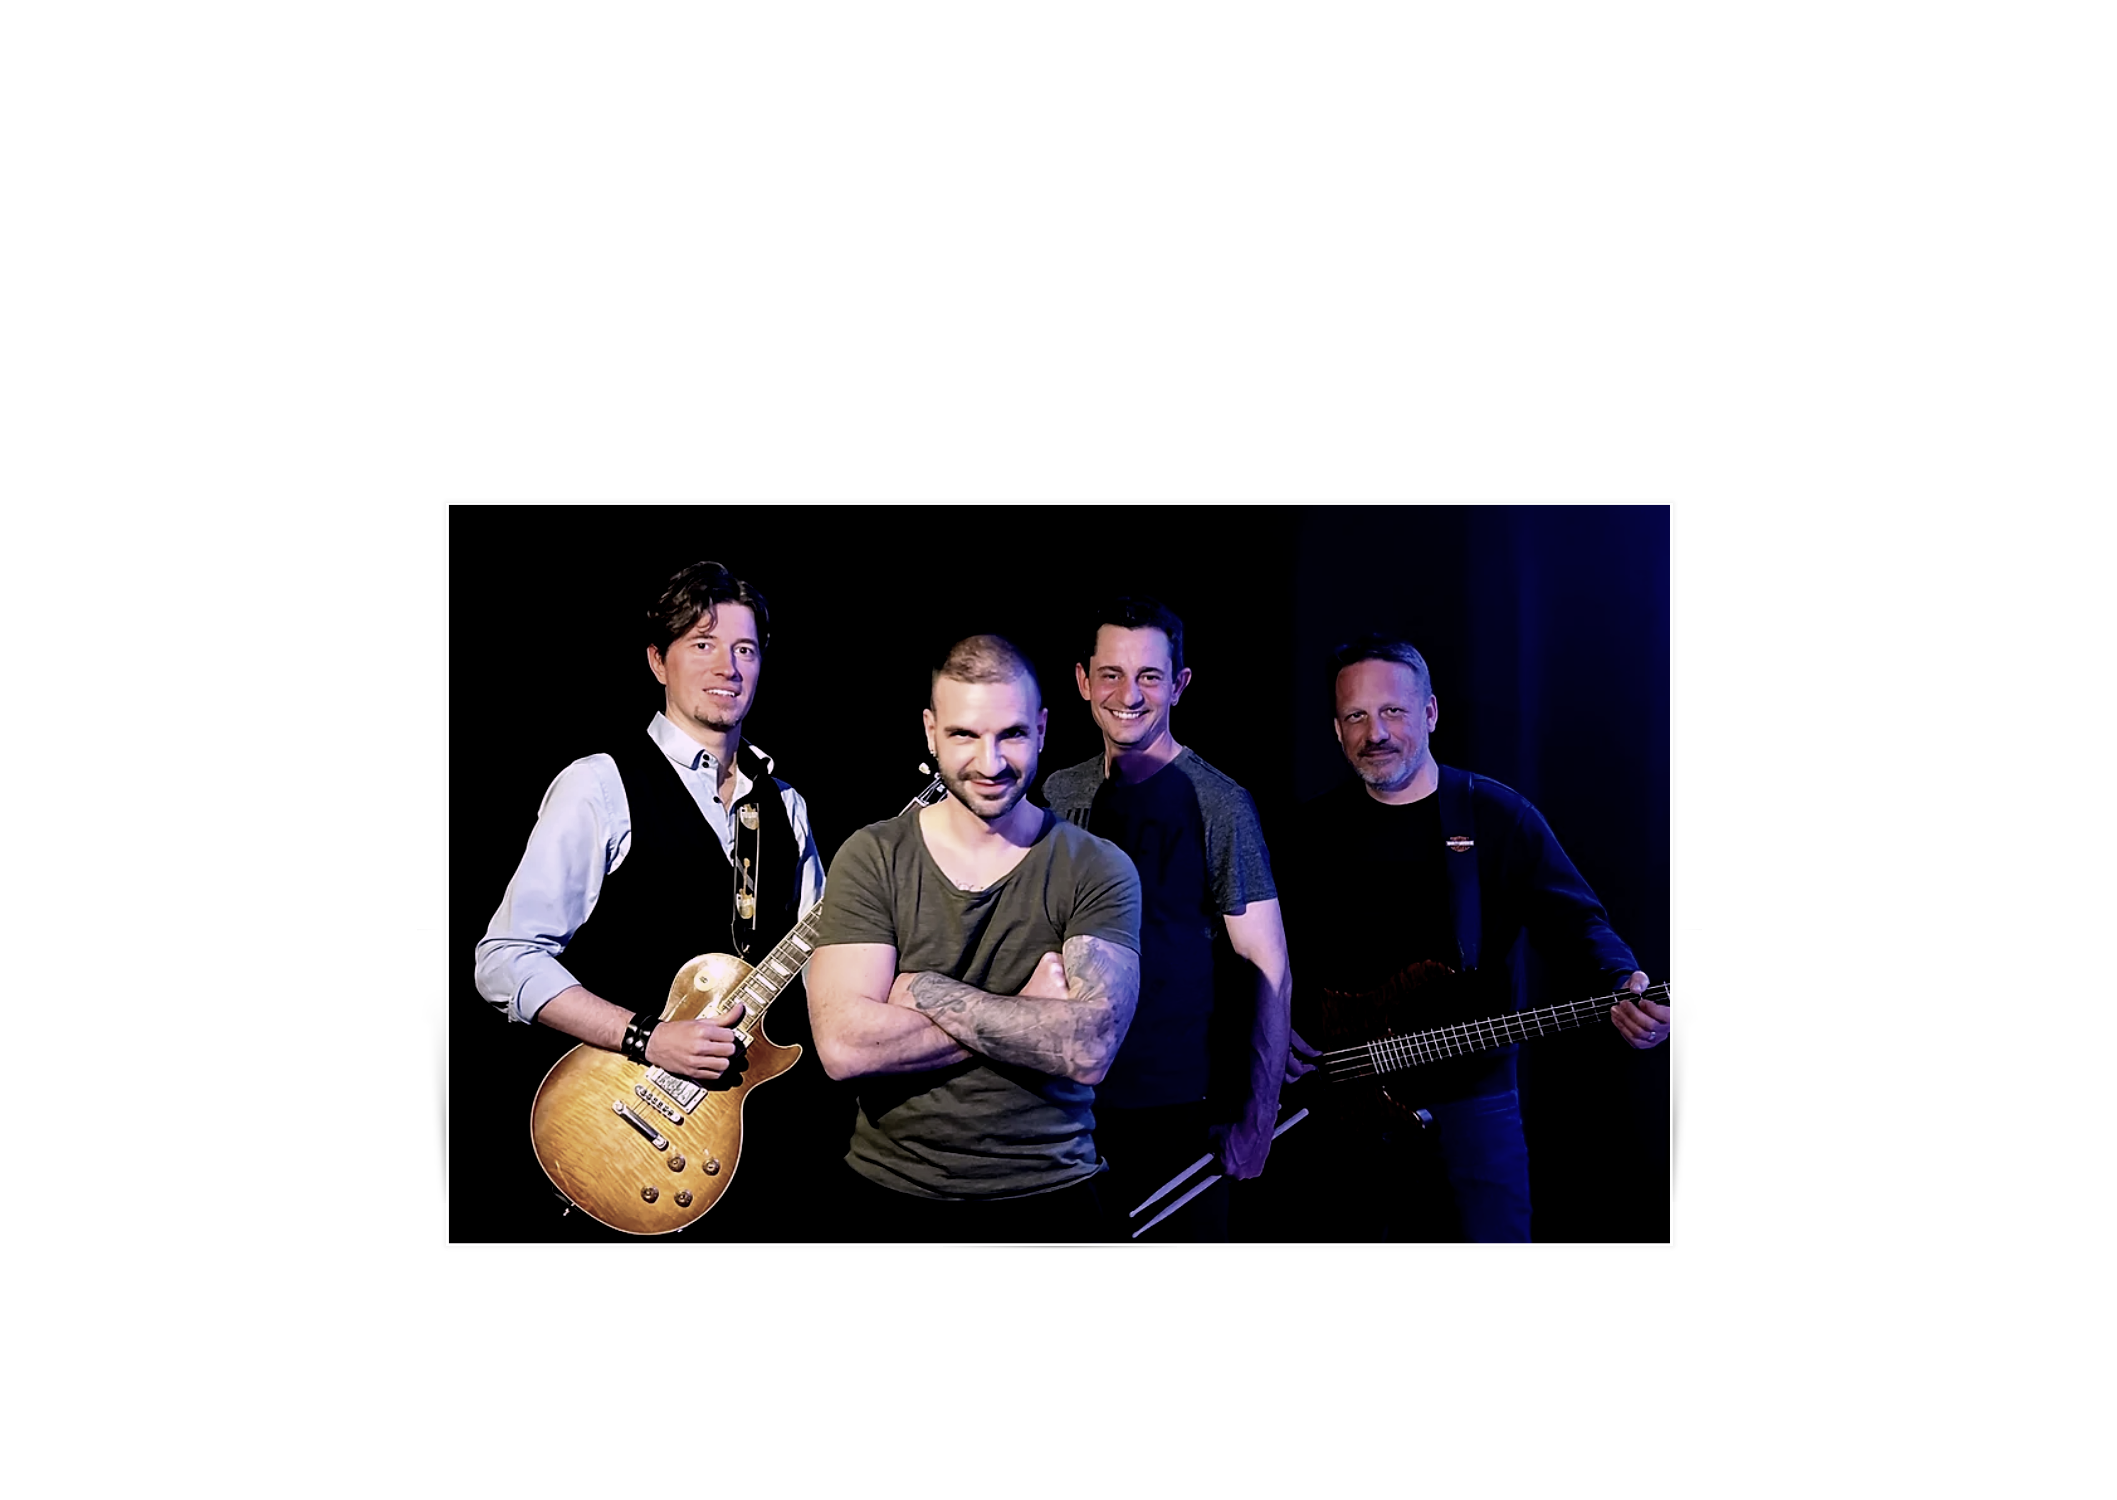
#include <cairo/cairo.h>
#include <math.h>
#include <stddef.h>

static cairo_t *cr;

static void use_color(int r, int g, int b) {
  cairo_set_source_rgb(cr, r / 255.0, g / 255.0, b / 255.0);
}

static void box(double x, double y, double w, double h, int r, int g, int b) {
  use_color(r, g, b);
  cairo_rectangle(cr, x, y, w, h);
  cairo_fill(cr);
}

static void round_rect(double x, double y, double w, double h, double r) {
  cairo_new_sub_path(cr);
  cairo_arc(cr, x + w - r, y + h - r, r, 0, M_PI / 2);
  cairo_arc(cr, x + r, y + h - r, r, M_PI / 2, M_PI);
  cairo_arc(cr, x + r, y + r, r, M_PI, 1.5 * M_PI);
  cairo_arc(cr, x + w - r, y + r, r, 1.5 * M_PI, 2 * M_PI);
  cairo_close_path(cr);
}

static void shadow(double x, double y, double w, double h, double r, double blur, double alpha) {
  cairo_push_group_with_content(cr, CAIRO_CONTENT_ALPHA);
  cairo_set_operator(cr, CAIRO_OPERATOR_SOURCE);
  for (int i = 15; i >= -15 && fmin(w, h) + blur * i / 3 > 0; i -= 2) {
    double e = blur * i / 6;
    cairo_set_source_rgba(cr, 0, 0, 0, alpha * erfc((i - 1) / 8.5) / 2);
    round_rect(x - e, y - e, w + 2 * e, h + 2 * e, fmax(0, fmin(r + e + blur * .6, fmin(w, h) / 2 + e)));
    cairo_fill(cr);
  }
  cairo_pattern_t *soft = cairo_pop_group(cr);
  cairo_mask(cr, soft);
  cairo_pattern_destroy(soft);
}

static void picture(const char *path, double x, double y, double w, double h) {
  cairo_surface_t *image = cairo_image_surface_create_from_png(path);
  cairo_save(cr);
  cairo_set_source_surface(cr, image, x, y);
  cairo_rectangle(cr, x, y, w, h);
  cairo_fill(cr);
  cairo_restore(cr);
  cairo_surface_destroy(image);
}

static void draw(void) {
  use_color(255, 255, 255);
  cairo_paint(cr);
  use_color(0, 0, 0);
  shadow(446, 503, 1227, 743, 0, 3, 0.1);
  box(446, 503, 1227, 743, 255, 255, 255);
  picture("img_01.png", 417, 929, 30, 274);
  picture("img_02.png", 448, 504, 1222, 740);
  picture("img_03.png", 943, 1246, 234, 3);
  picture("img_04.png", 1672, 929, 30, 273);
}

int main(void) {
  cairo_surface_t *surface = cairo_image_surface_create(CAIRO_FORMAT_RGB24, 2117, 1500);
  cr = cairo_create(surface);
  cairo_font_options_t *options = cairo_font_options_create();
  cairo_font_options_set_hint_metrics(options, CAIRO_HINT_METRICS_OFF);
  cairo_font_options_set_hint_style(options, CAIRO_HINT_STYLE_NONE);
  cairo_set_font_options(cr, options);
  cairo_set_miter_limit(cr, 4);
  draw();
  cairo_surface_write_to_png(surface, "out.png");
  cairo_font_options_destroy(options);
  cairo_destroy(cr);
  cairo_surface_destroy(surface);
  return 0;
}
